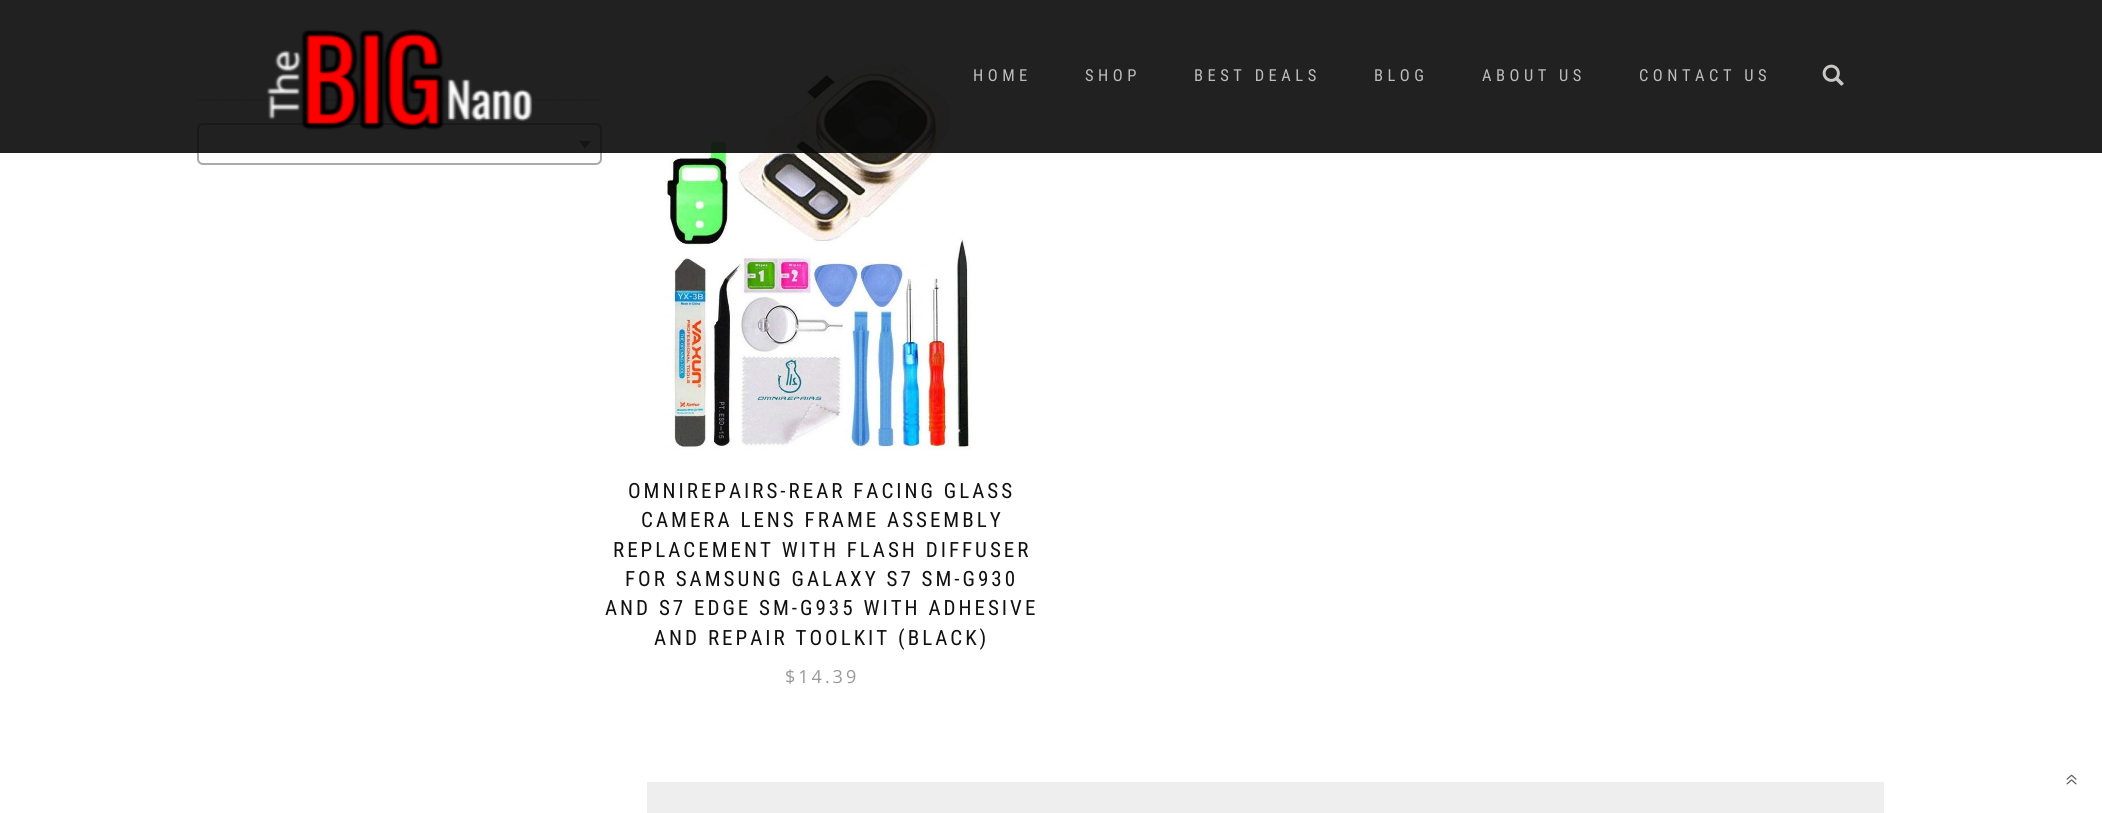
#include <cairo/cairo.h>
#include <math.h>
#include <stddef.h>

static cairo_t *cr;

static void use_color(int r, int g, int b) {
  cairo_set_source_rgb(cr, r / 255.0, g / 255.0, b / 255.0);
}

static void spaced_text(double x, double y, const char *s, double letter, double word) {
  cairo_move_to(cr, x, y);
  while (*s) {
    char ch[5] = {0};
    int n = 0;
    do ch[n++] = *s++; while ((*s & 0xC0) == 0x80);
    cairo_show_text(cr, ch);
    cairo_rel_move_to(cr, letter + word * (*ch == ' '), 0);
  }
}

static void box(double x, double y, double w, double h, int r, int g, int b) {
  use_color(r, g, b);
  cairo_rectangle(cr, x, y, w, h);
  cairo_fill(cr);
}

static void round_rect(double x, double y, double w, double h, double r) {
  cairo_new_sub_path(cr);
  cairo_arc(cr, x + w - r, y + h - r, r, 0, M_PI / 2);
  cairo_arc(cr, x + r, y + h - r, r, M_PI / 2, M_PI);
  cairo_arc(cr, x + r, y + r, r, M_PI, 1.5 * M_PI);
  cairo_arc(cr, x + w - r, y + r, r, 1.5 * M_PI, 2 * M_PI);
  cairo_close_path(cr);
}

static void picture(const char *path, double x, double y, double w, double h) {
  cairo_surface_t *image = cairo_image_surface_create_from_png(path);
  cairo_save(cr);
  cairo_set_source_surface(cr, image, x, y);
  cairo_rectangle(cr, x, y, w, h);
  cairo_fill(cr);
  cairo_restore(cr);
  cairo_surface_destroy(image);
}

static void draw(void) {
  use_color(255, 255, 255);
  cairo_paint(cr);
  cairo_new_path(cr);
  cairo_move_to(cr, 196.5, 100);
  cairo_line_to(cr, 601.5, 100);
  use_color(194, 194, 194);
  cairo_set_line_width(cr, 1.5);
  cairo_set_dash(cr, (double[]){1.5, 1.5}, 2, 0);
  cairo_stroke(cr);
  round_rect(198, 124, 403, 40, 5);
  use_color(170, 170, 170);
  cairo_set_line_width(cr, 2);
  cairo_set_dash(cr, NULL, 0, 0);
  cairo_stroke(cr);
  use_color(136, 136, 136);
  cairo_new_path(cr);
  cairo_move_to(cr, 579, 141);
  cairo_line_to(cr, 591, 141);
  cairo_line_to(cr, 585, 148.5);
  cairo_close_path(cr);
  cairo_fill(cr);
  picture("img_03.png", 665, 61, 308, 389);
  cairo_set_source_rgba(cr, 0.039, 0.039, 0.039, 0.9);
  cairo_rectangle(cr, 0, 0, 2102, 153);
  cairo_fill(cr);
  picture("img_01.png", 266, 29, 267, 101);
  picture("img_02.png", 1822, 64, 22, 22);
  box(647, 782, 1237, 31, 238, 238, 238);
  picture("img_04.png", 2066, 774, 11, 11);
  cairo_select_font_face(cr, "Roboto Condensed", CAIRO_FONT_SLANT_NORMAL, CAIRO_FONT_WEIGHT_NORMAL);
  cairo_set_font_size(cr, 16.5);
  use_color(189, 189, 189);
  spaced_text(973, 81, "HOME", 4.5, 0);
  spaced_text(1085, 81, "SHOP", 4.5, 0);
  spaced_text(1194, 81, "BEST DEALS", 4.5, 0);
  spaced_text(1374, 81, "BLOG", 4.5, 0);
  spaced_text(1482, 81, "ABOUT US", 4.5, 0);
  spaced_text(1639, 81, "CONTACT US", 4.5, 0);
  cairo_set_font_size(cr, 21);
  use_color(17, 17, 17);
  spaced_text(628, 498, "OMNIREPAIRS-REAR FACING GLASS", 3, 0);
  spaced_text(641, 527, "CAMERA LENS FRAME ASSEMBLY", 3, 0);
  spaced_text(613, 557, "REPLACEMENT WITH FLASH DIFFUSER", 3, 0);
  spaced_text(625, 586, "FOR SAMSUNG GALAXY S7 SM-G930", 3, 0);
  spaced_text(605, 615, "AND S7 EDGE SM-G935 WITH ADHESIVE", 3, 0);
  spaced_text(654, 645, "AND REPAIR TOOLKIT (BLACK)", 3, 0);
  cairo_select_font_face(cr, "Open Sans", CAIRO_FONT_SLANT_NORMAL, CAIRO_FONT_WEIGHT_NORMAL);
  cairo_set_font_size(cr, 18);
  use_color(153, 153, 153);
  spaced_text(785, 683, "$14.39", 3, 0);
}

int main(void) {
  cairo_surface_t *surface = cairo_image_surface_create(CAIRO_FORMAT_RGB24, 2102, 813);
  cr = cairo_create(surface);
  cairo_font_options_t *options = cairo_font_options_create();
  cairo_font_options_set_hint_metrics(options, CAIRO_HINT_METRICS_OFF);
  cairo_font_options_set_hint_style(options, CAIRO_HINT_STYLE_NONE);
  cairo_set_font_options(cr, options);
  cairo_set_miter_limit(cr, 4);
  draw();
  cairo_surface_write_to_png(surface, "out.png");
  cairo_font_options_destroy(options);
  cairo_destroy(cr);
  cairo_surface_destroy(surface);
  return 0;
}
